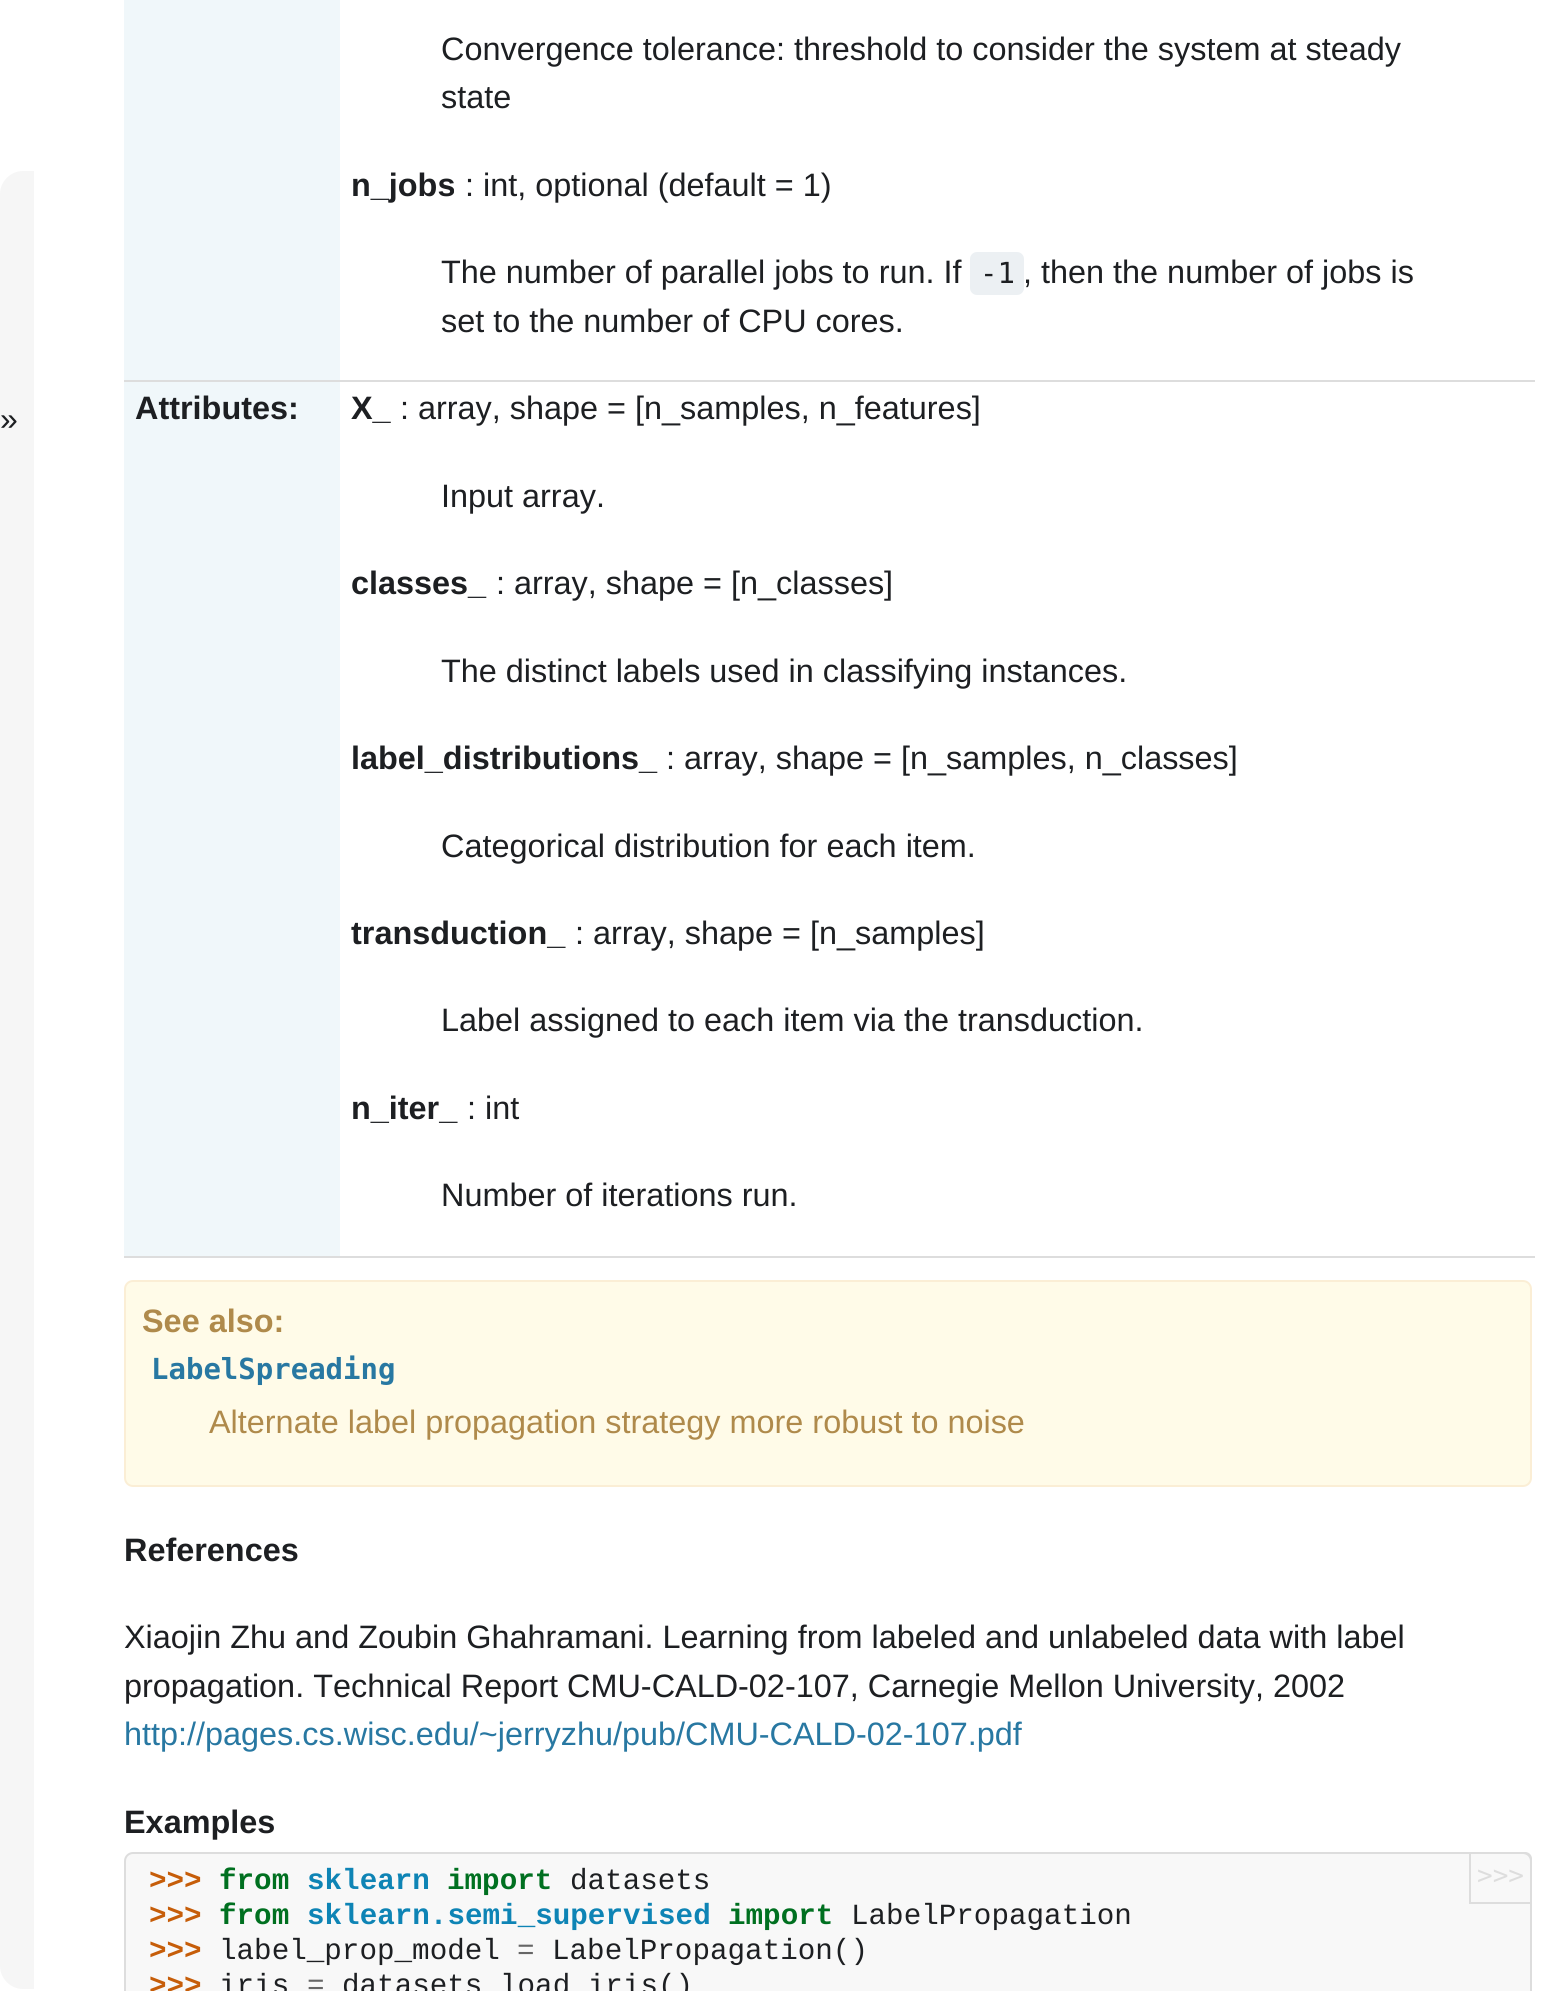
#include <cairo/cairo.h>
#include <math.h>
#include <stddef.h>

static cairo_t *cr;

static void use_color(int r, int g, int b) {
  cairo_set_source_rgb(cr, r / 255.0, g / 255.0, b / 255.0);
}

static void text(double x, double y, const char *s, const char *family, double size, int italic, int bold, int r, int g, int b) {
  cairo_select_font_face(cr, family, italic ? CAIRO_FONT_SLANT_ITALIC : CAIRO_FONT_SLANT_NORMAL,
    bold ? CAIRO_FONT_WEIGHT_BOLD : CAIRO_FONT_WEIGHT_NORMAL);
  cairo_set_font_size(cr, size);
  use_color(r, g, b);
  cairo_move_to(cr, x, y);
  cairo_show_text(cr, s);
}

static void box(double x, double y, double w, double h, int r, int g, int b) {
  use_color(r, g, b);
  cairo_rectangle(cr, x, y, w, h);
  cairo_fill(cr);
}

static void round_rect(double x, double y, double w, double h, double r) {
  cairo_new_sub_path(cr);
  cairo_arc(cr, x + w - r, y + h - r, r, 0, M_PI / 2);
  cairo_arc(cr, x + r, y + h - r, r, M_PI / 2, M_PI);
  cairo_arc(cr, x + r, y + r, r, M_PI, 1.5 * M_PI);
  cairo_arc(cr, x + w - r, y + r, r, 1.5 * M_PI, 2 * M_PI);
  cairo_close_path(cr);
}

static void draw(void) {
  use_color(255, 255, 255);
  cairo_paint(cr);
  use_color(246, 246, 246);
  cairo_new_path(cr);
  cairo_move_to(cr, 23, 171);
  cairo_line_to(cr, 34, 171);
  cairo_line_to(cr, 34, 1989);
  cairo_line_to(cr, 23, 1989);
  cairo_curve_to(cr, 10.5, 1989, 0, 1978.5, 0, 1966);
  cairo_line_to(cr, 0, 194);
  cairo_curve_to(cr, 0, 181.5, 10.5, 171, 23, 171);
  cairo_close_path(cr);
  cairo_fill(cr);
  box(124, 0, 216, 1256, 240, 247, 250);
  use_color(236, 240, 243);
  round_rect(970, 252, 54, 43, 7);
  cairo_fill(cr);
  box(124, 380, 1411, 2, 221, 221, 221);
  box(124, 1256, 1411, 2, 221, 221, 221);
  use_color(255, 251, 232);
  round_rect(125, 1281, 1406, 205, 8);
  cairo_fill_preserve(cr);
  use_color(251, 238, 213);
  cairo_stroke(cr);
  use_color(248, 248, 248);
  round_rect(125, 1853, 1406, 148, 8);
  cairo_fill_preserve(cr);
  use_color(221, 221, 221);
  cairo_stroke(cr);
  cairo_new_path(cr);
  cairo_move_to(cr, 1470, 1853);
  cairo_line_to(cr, 1525, 1853);
  cairo_curve_to(cr, 1528.5, 1853, 1531, 1855.5, 1531, 1859);
  cairo_line_to(cr, 1531, 1903);
  cairo_line_to(cr, 1470, 1903);
  cairo_close_path(cr);
  cairo_stroke(cr);
  text(0, 430, "»", "Liberation Sans", 32, 0, 0, 29, 31, 34);
  text(441, 60, "Convergence tolerance: threshold to consider the system at steady", "Liberation Sans", 32.4, 0, 0, 29, 31, 34);
  text(441, 108, "state", "Liberation Sans", 32.4, 0, 0, 29, 31, 34);
  text(351, 196, "n_jobs", "Liberation Sans", 32.4, 0, 1, 29, 31, 34);
  text(465, 196, ": int, optional (default = 1)", "Liberation Sans", 32.4, 0, 0, 29, 31, 34);
  text(441, 283, "The number of parallel jobs to run. If", "Liberation Sans", 32.4, 0, 0, 29, 31, 34);
  text(980, 283, "-1", "DejaVu Sans Mono", 29, 0, 0, 29, 31, 34);
  text(1023, 283, ", then the number of jobs is", "Liberation Sans", 32.4, 0, 0, 29, 31, 34);
  text(441, 332, "set to the number of CPU cores.", "Liberation Sans", 32.4, 0, 0, 29, 31, 34);
  text(135, 419, "Attributes:", "Liberation Sans", 32.4, 0, 1, 29, 31, 34);
  text(351, 419, "X_", "Liberation Sans", 32.4, 0, 1, 29, 31, 34);
  text(400, 419, ": array, shape = [n_samples, n_features]", "Liberation Sans", 32.4, 0, 0, 29, 31, 34);
  text(441, 507, "Input array.", "Liberation Sans", 32.4, 0, 0, 29, 31, 34);
  text(351, 594, "classes_", "Liberation Sans", 32.4, 0, 1, 29, 31, 34);
  text(496, 594, ": array, shape = [n_classes]", "Liberation Sans", 32.4, 0, 0, 29, 31, 34);
  text(441, 682, "The distinct labels used in classifying instances.", "Liberation Sans", 32.4, 0, 0, 29, 31, 34);
  text(351, 769, "label_distributions_", "Liberation Sans", 32.4, 0, 1, 29, 31, 34);
  text(666, 769, ": array, shape = [n_samples, n_classes]", "Liberation Sans", 32.4, 0, 0, 29, 31, 34);
  text(441, 857, "Categorical distribution for each item.", "Liberation Sans", 32.4, 0, 0, 29, 31, 34);
  text(351, 944, "transduction_", "Liberation Sans", 32.4, 0, 1, 29, 31, 34);
  text(575, 944, ": array, shape = [n_samples]", "Liberation Sans", 32.4, 0, 0, 29, 31, 34);
  text(441, 1031, "Label assigned to each item via the transduction.", "Liberation Sans", 32.4, 0, 0, 29, 31, 34);
  text(351, 1119, "n_iter_", "Liberation Sans", 32.4, 0, 1, 29, 31, 34);
  text(467, 1119, ": int", "Liberation Sans", 32.4, 0, 0, 29, 31, 34);
  text(441, 1206, "Number of iterations run.", "Liberation Sans", 32.4, 0, 0, 29, 31, 34);
  text(142, 1332, "See also:", "Liberation Sans", 32.4, 0, 1, 175, 138, 75);
  text(151, 1379, "LabelSpreading", "DejaVu Sans Mono", 29, 0, 1, 40, 120, 162);
  text(209, 1433, "Alternate label propagation strategy more robust to noise", "Liberation Sans", 32.4, 0, 0, 175, 138, 75);
  text(124, 1561, "References", "Liberation Sans", 32.4, 0, 1, 29, 31, 34);
  text(124, 1648, "Xiaojin Zhu and Zoubin Ghahramani. Learning from labeled and unlabeled data with label", "Liberation Sans", 32.4, 0, 0, 29, 31, 34);
  text(124, 1697, "propagation. Technical Report CMU-CALD-02-107, Carnegie Mellon University, 2002", "Liberation Sans", 32.4, 0, 0, 29, 31, 34);
  text(124, 1745, "http://pages.cs.wisc.edu/~jerryzhu/pub/CMU-CALD-02-107.pdf", "Liberation Sans", 32.4, 0, 0, 40, 120, 162);
  text(124, 1833, "Examples", "Liberation Sans", 32.4, 0, 1, 29, 31, 34);
  text(149, 1889, ">>>", "Liberation Mono", 29.25, 0, 1, 198, 93, 9);
  text(219, 1889, "from", "Liberation Mono", 29.25, 0, 1, 0, 112, 32);
  text(307, 1889, "sklearn", "Liberation Mono", 29.25, 0, 1, 14, 132, 181);
  text(447, 1889, "import", "Liberation Mono", 29.25, 0, 1, 0, 112, 32);
  text(570, 1889, "datasets", "Liberation Mono", 29.25, 0, 0, 29, 31, 34);
  text(149, 1924, ">>>", "Liberation Mono", 29.25, 0, 1, 198, 93, 9);
  text(219, 1924, "from", "Liberation Mono", 29.25, 0, 1, 0, 112, 32);
  text(307, 1924, "sklearn.semi_supervised", "Liberation Mono", 29.25, 0, 1, 14, 132, 181);
  text(728, 1924, "import", "Liberation Mono", 29.25, 0, 1, 0, 112, 32);
  text(851, 1924, "LabelPropagation", "Liberation Mono", 29.25, 0, 0, 29, 31, 34);
  text(149, 1959, ">>>", "Liberation Mono", 29.25, 0, 1, 198, 93, 9);
  text(219, 1959, "label_prop_model", "Liberation Mono", 29.25, 0, 0, 29, 31, 34);
  text(517, 1959, "=", "Liberation Mono", 29.25, 0, 0, 102, 102, 102);
  text(552, 1959, "LabelPropagation()", "Liberation Mono", 29.25, 0, 0, 29, 31, 34);
  text(149, 1994, ">>>", "Liberation Mono", 29.25, 0, 1, 198, 93, 9);
  text(219, 1994, "iris", "Liberation Mono", 29.25, 0, 0, 29, 31, 34);
  text(307, 1994, "=", "Liberation Mono", 29.25, 0, 0, 102, 102, 102);
  text(342, 1994, "datasets load_iris()", "Liberation Mono", 29.25, 0, 0, 29, 31, 34);
  text(1477, 1884, ">>>", "DejaVu Sans Mono", 26, 0, 0, 221, 221, 221);
}

int main(void) {
  cairo_surface_t *surface = cairo_image_surface_create(CAIRO_FORMAT_RGB24, 1554, 1991);
  cr = cairo_create(surface);
  cairo_font_options_t *options = cairo_font_options_create();
  cairo_font_options_set_hint_metrics(options, CAIRO_HINT_METRICS_OFF);
  cairo_font_options_set_hint_style(options, CAIRO_HINT_STYLE_NONE);
  cairo_set_font_options(cr, options);
  cairo_set_miter_limit(cr, 4);
  draw();
  cairo_surface_write_to_png(surface, "out.png");
  cairo_font_options_destroy(options);
  cairo_destroy(cr);
  cairo_surface_destroy(surface);
  return 0;
}
